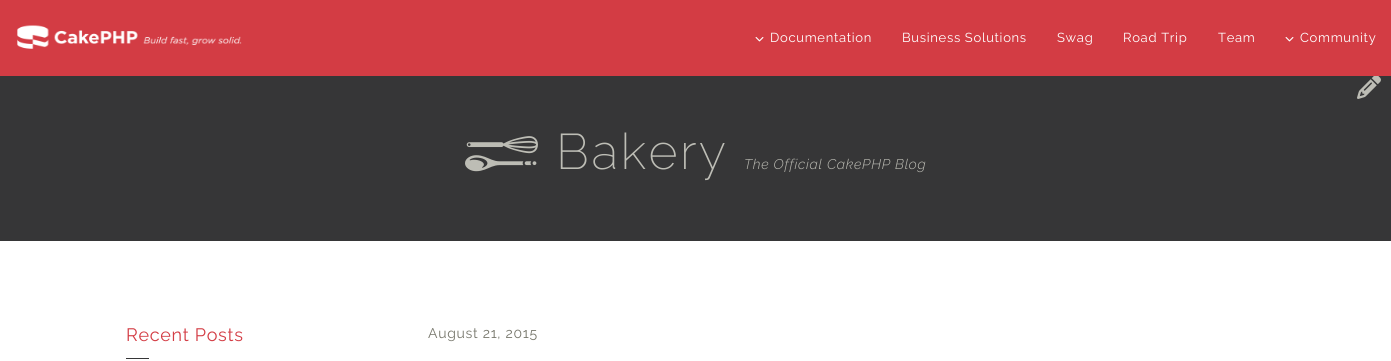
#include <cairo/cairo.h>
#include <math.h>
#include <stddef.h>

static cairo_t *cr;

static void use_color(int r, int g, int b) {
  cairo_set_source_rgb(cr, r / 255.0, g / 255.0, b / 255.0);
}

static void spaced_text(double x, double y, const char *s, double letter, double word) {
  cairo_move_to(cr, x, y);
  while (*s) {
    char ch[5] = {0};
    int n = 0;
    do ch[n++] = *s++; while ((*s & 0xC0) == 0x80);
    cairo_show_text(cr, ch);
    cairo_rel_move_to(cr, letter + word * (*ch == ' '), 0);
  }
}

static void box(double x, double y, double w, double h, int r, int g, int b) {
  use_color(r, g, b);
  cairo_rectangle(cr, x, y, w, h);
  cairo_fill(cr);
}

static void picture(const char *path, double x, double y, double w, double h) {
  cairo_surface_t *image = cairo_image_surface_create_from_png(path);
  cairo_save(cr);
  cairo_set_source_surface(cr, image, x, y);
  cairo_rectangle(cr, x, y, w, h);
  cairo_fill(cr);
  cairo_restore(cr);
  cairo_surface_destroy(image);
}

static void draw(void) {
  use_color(255, 255, 255);
  cairo_paint(cr);
  box(0, 0, 1391, 76, 211, 60, 68);
  picture("img_01.png", 17, 25, 225, 24);
  picture("img_02.png", 755, 37, 9, 5);
  picture("img_02.png", 1285, 37, 9, 5);
  box(0, 76, 1391, 165, 54, 54, 55);
  picture("img_03.png", 1357, 76, 24, 23);
  box(126, 358, 23, 1, 54, 54, 55);
  cairo_select_font_face(cr, "Raleway", CAIRO_FONT_SLANT_NORMAL, CAIRO_FONT_WEIGHT_NORMAL);
  cairo_set_font_size(cr, 13);
  use_color(255, 255, 255);
  spaced_text(770, 42, "Documentation", 0.7, 0);
  spaced_text(902, 42, "Business Solutions", 0.7, 0);
  spaced_text(1057, 42, "Swag", 0.7, 0);
  spaced_text(1123, 42, "Road Trip", 0.7, 0);
  spaced_text(1218, 42, "Team", 0.7, 0);
  spaced_text(1300, 42, "Community", 0.7, 0);
  cairo_select_font_face(cr, "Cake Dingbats", CAIRO_FONT_SLANT_NORMAL, CAIRO_FONT_WEIGHT_NORMAL);
  cairo_set_font_size(cr, 40);
  use_color(189, 189, 181);
  spaced_text(465, 169, "e", 2.5, 0);
  cairo_select_font_face(cr, "Raleway ExtraLight", CAIRO_FONT_SLANT_NORMAL, CAIRO_FONT_WEIGHT_NORMAL);
  cairo_set_font_size(cr, 50);
  spaced_text(556, 169, "Bakery", 2.5, 0);
  cairo_select_font_face(cr, "Raleway Thin", CAIRO_FONT_SLANT_ITALIC, CAIRO_FONT_WEIGHT_NORMAL);
  cairo_set_font_size(cr, 14);
  spaced_text(744, 169, "The Official CakePHP Blog", 0.7, 0);
  cairo_select_font_face(cr, "Raleway", CAIRO_FONT_SLANT_NORMAL, CAIRO_FONT_WEIGHT_NORMAL);
  cairo_set_font_size(cr, 18);
  use_color(211, 60, 68);
  spaced_text(126, 341, "Recent Posts", 0.7, 0);
  cairo_set_font_size(cr, 14);
  use_color(118, 118, 107);
  spaced_text(428, 338, "August 21, 2015", 0.7, 0);
}

int main(void) {
  cairo_surface_t *surface = cairo_image_surface_create(CAIRO_FORMAT_RGB24, 1391, 361);
  cr = cairo_create(surface);
  cairo_font_options_t *options = cairo_font_options_create();
  cairo_font_options_set_hint_metrics(options, CAIRO_HINT_METRICS_OFF);
  cairo_font_options_set_hint_style(options, CAIRO_HINT_STYLE_NONE);
  cairo_set_font_options(cr, options);
  cairo_set_miter_limit(cr, 4);
  draw();
  cairo_surface_write_to_png(surface, "out.png");
  cairo_font_options_destroy(options);
  cairo_destroy(cr);
  cairo_surface_destroy(surface);
  return 0;
}
